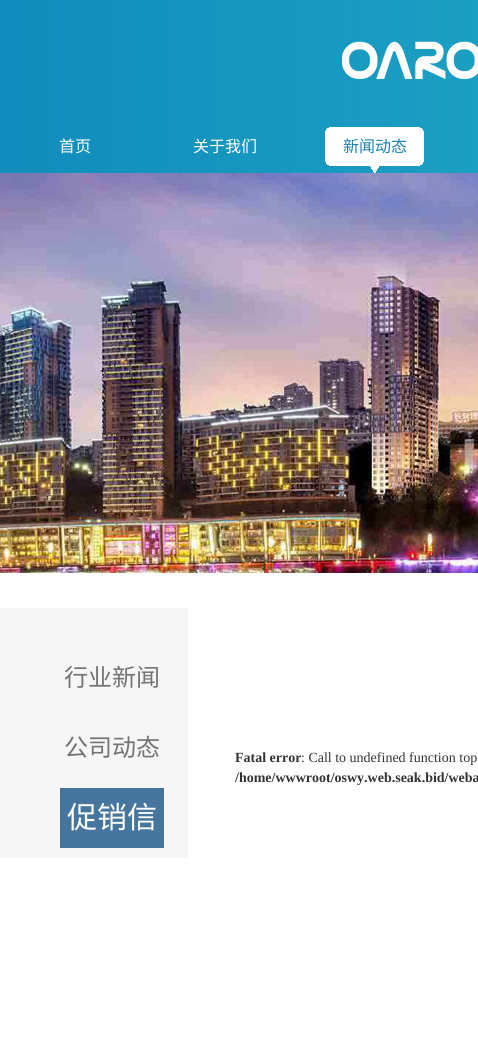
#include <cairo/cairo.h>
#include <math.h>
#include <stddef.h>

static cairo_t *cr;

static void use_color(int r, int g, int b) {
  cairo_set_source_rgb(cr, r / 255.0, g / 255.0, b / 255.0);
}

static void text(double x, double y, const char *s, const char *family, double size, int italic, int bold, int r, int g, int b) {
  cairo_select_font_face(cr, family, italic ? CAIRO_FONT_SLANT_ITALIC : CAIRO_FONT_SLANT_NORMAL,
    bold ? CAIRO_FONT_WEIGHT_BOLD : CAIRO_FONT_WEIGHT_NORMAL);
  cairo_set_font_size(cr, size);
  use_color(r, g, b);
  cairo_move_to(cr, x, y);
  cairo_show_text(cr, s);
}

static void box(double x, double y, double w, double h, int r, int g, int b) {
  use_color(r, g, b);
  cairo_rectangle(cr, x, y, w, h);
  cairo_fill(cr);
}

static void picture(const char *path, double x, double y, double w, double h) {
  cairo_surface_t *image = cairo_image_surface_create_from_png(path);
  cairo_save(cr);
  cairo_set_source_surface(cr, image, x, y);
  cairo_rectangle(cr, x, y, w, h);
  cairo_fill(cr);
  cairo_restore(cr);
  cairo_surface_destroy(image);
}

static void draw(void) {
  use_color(255, 255, 255);
  cairo_paint(cr);
  picture("img_01.png", 0, 0, 478, 173);
  picture("img_02.png", 325, 127, 99, 46);
  picture("img_03.png", 0, 173, 478, 400);
  box(0, 608, 188, 250, 246, 246, 246);
  box(60, 788, 104, 60, 70, 118, 158);
  text(59, 152, "首页", "Noto Sans CJK SC", 16, 0, 0, 255, 255, 255);
  text(193, 152, "关于我们", "Noto Sans CJK SC", 16, 0, 0, 255, 255, 255);
  text(343, 152, "新闻动态", "Noto Sans CJK SC", 16, 0, 0, 24, 130, 179);
  text(64, 686, "行业新闻", "Noto Sans CJK SC", 24, 0, 0, 115, 115, 115);
  text(64, 756, "公司动态", "Noto Sans CJK SC", 24, 0, 0, 115, 115, 115);
  text(67, 828, "促销信", "Noto Sans CJK SC", 30, 0, 0, 255, 255, 255);
  text(235, 762, "Fatal error", "Liberation Serif", 14, 0, 1, 51, 51, 51);
  text(301, 762, ": Call to undefined function top", "Liberation Serif", 14, 0, 0, 51, 51, 51);
  text(235, 782, "/home/wwwroot/oswy.web.seak.bid/weba", "Liberation Serif", 14, 0, 1, 51, 51, 51);
}

int main(void) {
  cairo_surface_t *surface = cairo_image_surface_create(CAIRO_FORMAT_RGB24, 478, 1056);
  cr = cairo_create(surface);
  cairo_font_options_t *options = cairo_font_options_create();
  cairo_font_options_set_hint_metrics(options, CAIRO_HINT_METRICS_OFF);
  cairo_font_options_set_hint_style(options, CAIRO_HINT_STYLE_NONE);
  cairo_set_font_options(cr, options);
  cairo_set_miter_limit(cr, 4);
  draw();
  cairo_surface_write_to_png(surface, "out.png");
  cairo_font_options_destroy(options);
  cairo_destroy(cr);
  cairo_surface_destroy(surface);
  return 0;
}
